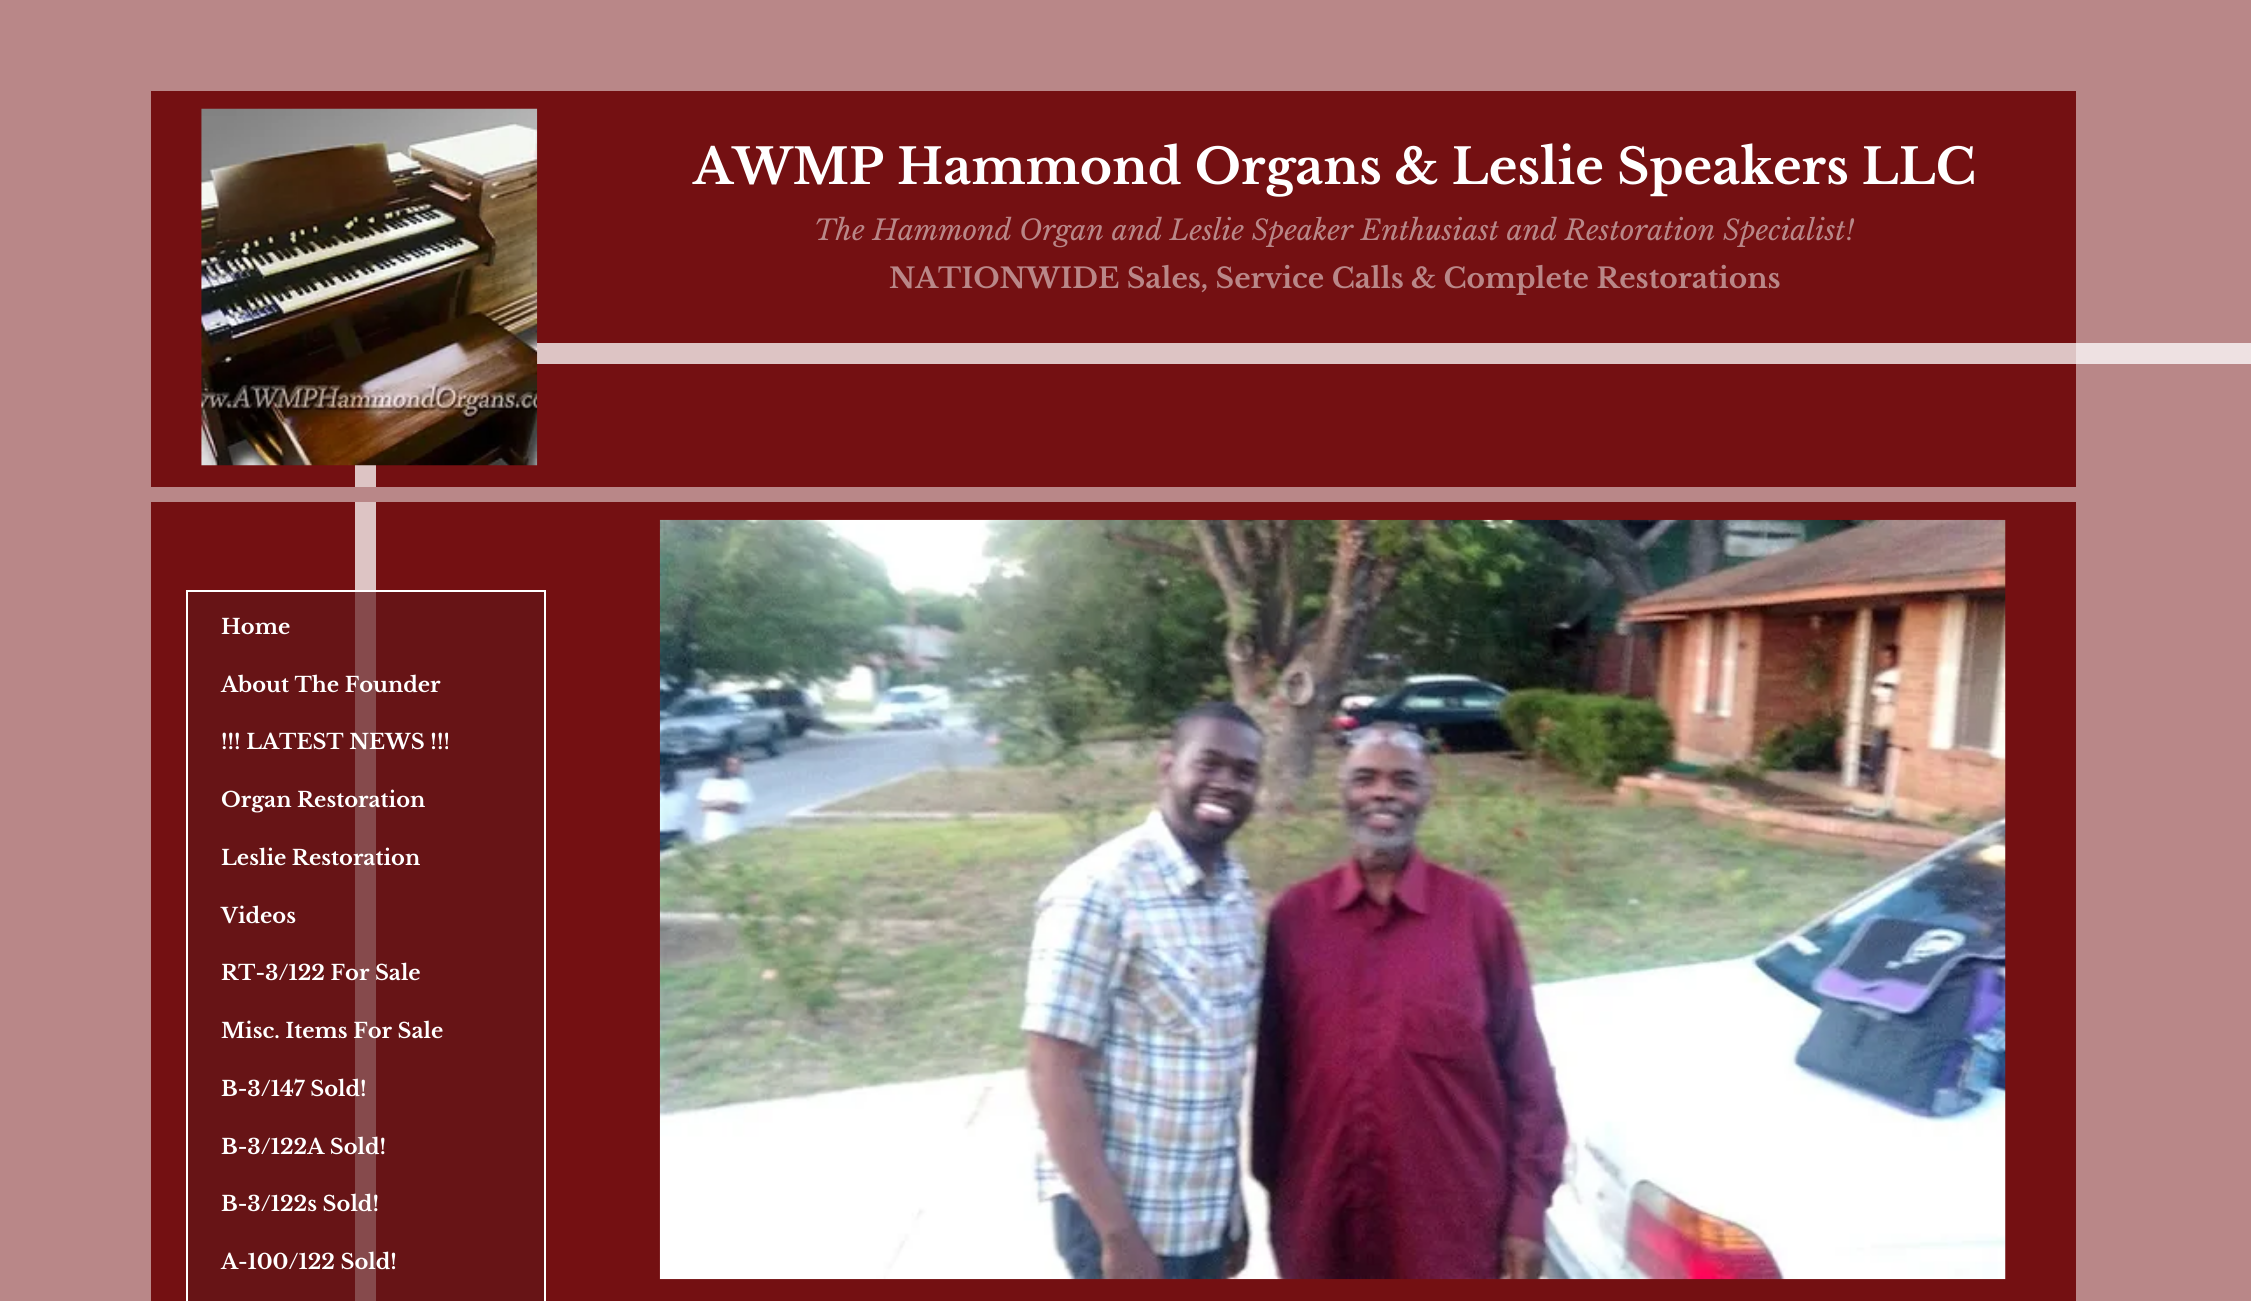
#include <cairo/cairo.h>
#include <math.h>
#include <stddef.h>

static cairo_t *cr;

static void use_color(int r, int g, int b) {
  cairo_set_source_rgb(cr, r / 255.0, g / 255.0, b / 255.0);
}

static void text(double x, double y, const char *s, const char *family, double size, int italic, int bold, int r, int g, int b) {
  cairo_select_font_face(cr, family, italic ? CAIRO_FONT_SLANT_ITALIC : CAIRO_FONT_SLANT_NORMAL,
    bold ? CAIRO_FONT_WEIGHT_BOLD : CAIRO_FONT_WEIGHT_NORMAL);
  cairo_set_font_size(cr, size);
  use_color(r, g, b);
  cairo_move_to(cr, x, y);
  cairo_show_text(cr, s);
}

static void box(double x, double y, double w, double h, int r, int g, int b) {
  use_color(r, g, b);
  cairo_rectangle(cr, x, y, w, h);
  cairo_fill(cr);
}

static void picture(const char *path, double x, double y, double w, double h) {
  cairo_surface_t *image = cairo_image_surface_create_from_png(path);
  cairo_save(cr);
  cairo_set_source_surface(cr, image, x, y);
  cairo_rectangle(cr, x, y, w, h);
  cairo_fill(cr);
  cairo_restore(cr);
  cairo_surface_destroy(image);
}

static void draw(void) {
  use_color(185, 135, 136);
  cairo_paint(cr);
  box(151, 91, 1925, 396, 116, 16, 18);
  box(537, 343, 1539, 21, 221, 196, 196);
  box(355, 465, 21, 22, 221, 196, 196);
  picture("img_01.png", 201, 108, 337, 358);
  box(151, 502, 1925, 799, 116, 16, 18);
  box(188, 592, 356, 709, 103, 20, 22);
  box(355, 502, 21, 88, 221, 196, 196);
  box(355, 592, 21, 709, 134, 74, 76);
  cairo_rectangle(cr, 187, 591, 358, 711);
  use_color(255, 255, 255);
  cairo_stroke(cr);
  picture("img_02.png", 659, 519, 1347, 761);
  box(2076, 343, 175, 21, 238, 225, 226);
  text(693, 184, "AWMP Hammond Organs & Leslie Speakers LLC", "Libre Baskerville", 49, 0, 1, 255, 255, 255);
  text(814, 240, "The Hammond Organ and Leslie Speaker Enthusiast and Restoration Specialist!", "Libre Baskerville", 28, 1, 0, 185, 135, 136);
  text(889, 288, "NATIONWIDE Sales, Service Calls & Complete Restorations", "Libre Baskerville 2", 28, 0, 1, 185, 135, 136);
  text(221, 634, "Home", "Libre Baskerville", 21, 0, 1, 255, 255, 255);
  text(221, 692, "About The Founder", "Libre Baskerville", 21, 0, 1, 255, 255, 255);
  text(221, 749, "!!! LATEST NEWS !!!", "Libre Baskerville", 21, 0, 1, 255, 255, 255);
  text(221, 807, "Organ Restoration", "Libre Baskerville", 21, 0, 1, 255, 255, 255);
  text(221, 865, "Leslie Restoration", "Libre Baskerville", 21, 0, 1, 255, 255, 255);
  text(221, 923, "Videos", "Libre Baskerville", 21, 0, 1, 255, 255, 255);
  text(221, 980, "RT-3/122 For Sale", "Libre Baskerville", 21, 0, 1, 255, 255, 255);
  text(221, 1038, "Misc. Items For Sale", "Libre Baskerville", 21, 0, 1, 255, 255, 255);
  text(221, 1096, "B-3/147 Sold!", "Libre Baskerville", 21, 0, 1, 255, 255, 255);
  text(221, 1154, "B-3/122A Sold!", "Libre Baskerville", 21, 0, 1, 255, 255, 255);
  text(221, 1211, "B-3/122s Sold!", "Libre Baskerville", 21, 0, 1, 255, 255, 255);
  text(221, 1269, "A-100/122 Sold!", "Libre Baskerville", 21, 0, 1, 255, 255, 255);
}

int main(void) {
  cairo_surface_t *surface = cairo_image_surface_create(CAIRO_FORMAT_RGB24, 2251, 1301);
  cr = cairo_create(surface);
  cairo_font_options_t *options = cairo_font_options_create();
  cairo_font_options_set_hint_metrics(options, CAIRO_HINT_METRICS_OFF);
  cairo_font_options_set_hint_style(options, CAIRO_HINT_STYLE_NONE);
  cairo_set_font_options(cr, options);
  cairo_set_miter_limit(cr, 4);
  draw();
  cairo_surface_write_to_png(surface, "out.png");
  cairo_font_options_destroy(options);
  cairo_destroy(cr);
  cairo_surface_destroy(surface);
  return 0;
}
